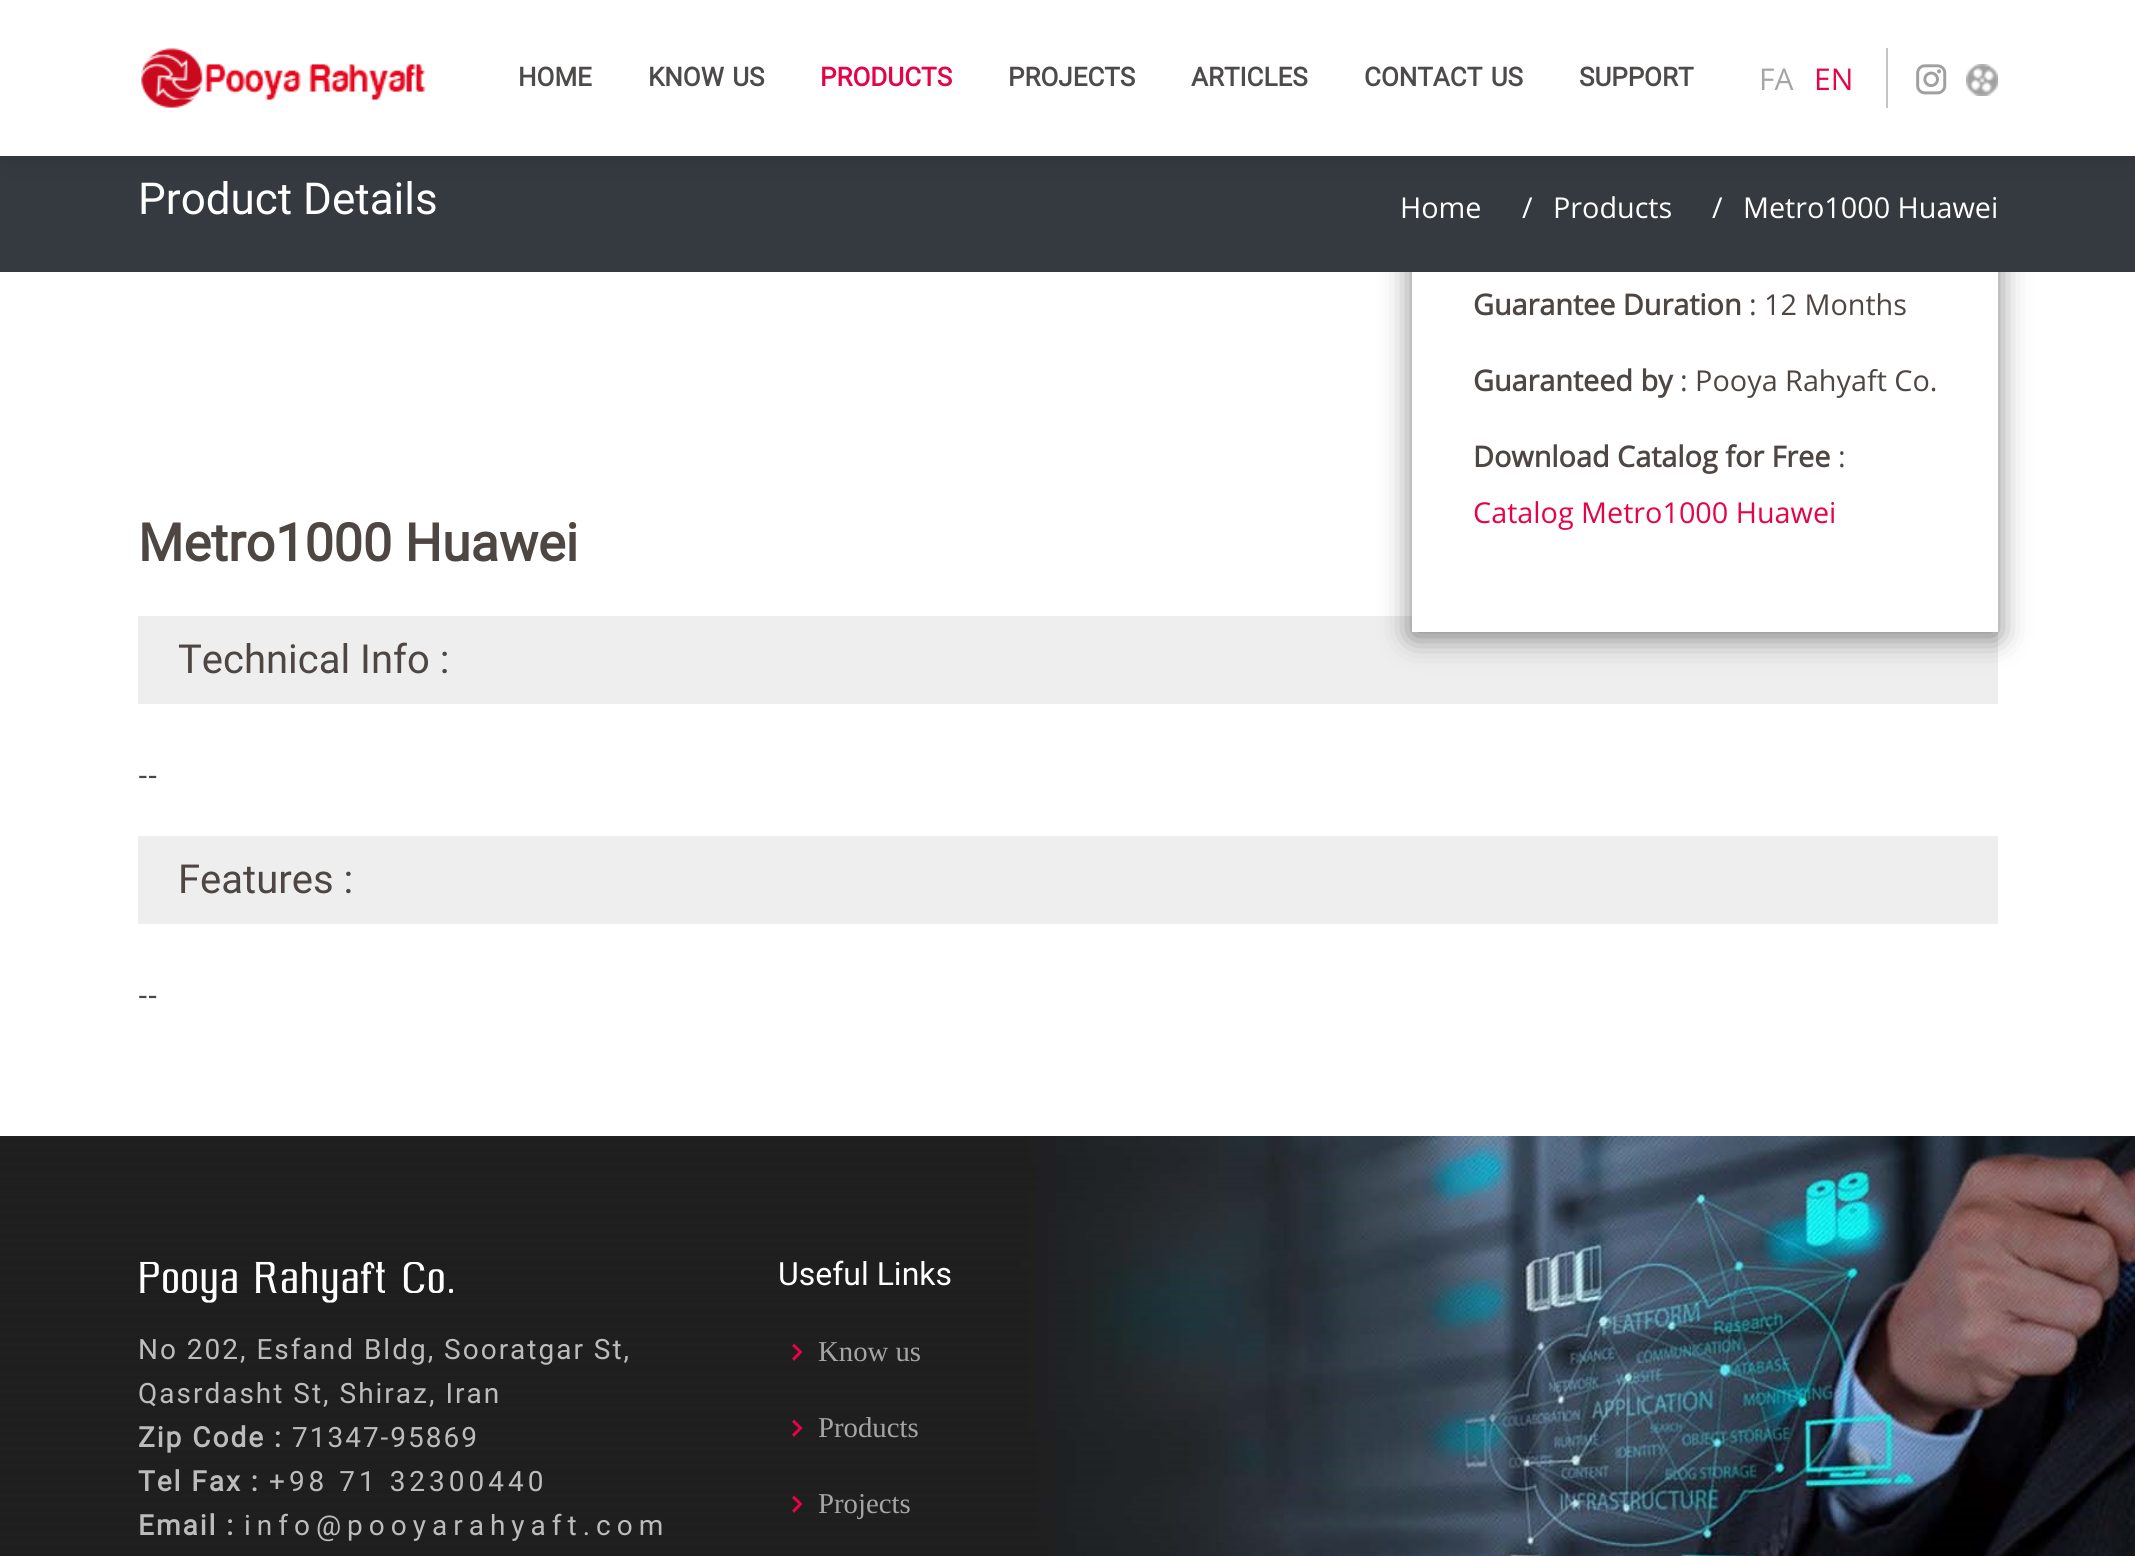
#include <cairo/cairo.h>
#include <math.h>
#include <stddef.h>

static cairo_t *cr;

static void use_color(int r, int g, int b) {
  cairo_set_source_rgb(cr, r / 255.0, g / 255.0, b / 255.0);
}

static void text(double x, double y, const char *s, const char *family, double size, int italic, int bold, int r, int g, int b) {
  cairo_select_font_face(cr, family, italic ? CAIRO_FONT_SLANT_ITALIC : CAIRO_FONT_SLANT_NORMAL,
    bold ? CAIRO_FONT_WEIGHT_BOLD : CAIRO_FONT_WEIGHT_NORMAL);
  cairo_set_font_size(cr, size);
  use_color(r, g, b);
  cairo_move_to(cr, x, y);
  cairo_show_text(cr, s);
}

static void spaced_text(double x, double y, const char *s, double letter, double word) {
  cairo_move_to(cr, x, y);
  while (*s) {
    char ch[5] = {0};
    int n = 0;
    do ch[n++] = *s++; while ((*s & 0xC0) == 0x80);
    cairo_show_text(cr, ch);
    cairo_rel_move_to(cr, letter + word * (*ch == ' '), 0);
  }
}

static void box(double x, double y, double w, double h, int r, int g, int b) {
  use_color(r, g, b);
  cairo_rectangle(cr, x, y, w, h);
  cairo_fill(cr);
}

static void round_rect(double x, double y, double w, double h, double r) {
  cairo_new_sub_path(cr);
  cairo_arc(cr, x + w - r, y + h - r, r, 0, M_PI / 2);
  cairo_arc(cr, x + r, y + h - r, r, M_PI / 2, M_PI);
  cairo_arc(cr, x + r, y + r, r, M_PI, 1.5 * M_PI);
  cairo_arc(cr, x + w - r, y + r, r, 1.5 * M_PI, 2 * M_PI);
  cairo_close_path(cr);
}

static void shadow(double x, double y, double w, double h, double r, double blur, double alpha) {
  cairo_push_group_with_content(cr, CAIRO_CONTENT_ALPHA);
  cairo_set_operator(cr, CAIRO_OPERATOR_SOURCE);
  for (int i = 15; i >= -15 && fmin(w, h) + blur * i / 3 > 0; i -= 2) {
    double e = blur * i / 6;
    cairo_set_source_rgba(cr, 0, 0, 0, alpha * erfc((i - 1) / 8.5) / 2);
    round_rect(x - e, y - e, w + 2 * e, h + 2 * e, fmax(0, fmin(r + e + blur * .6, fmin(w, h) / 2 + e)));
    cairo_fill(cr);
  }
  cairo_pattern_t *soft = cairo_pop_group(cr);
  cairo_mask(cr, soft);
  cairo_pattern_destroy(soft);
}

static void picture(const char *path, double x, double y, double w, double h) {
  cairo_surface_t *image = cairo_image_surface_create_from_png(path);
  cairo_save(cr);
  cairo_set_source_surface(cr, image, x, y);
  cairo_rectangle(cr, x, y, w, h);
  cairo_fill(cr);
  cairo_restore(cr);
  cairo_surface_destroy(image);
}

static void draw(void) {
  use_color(255, 255, 255);
  cairo_paint(cr);
  box(0, 156, 2135, 116, 52, 58, 64);
  use_color(0, 0, 0);
  shadow(0, 4, 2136, 156, 0, 15, 0.1);
  box(138, 616, 1860, 88, 238, 238, 238);
  cairo_save(cr);
  cairo_rectangle(cr, 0, 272, 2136, 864);
  cairo_clip(cr);
  use_color(0, 0, 0);
  shadow(1412, 10, 586, 626, 0, 15, 0.5);
  cairo_restore(cr);
  box(0, 0, 2135, 156, 255, 255, 255);
  picture("img_01.png", 141, 48, 285, 60);
  box(1886, 48, 2, 60, 196, 196, 196);
  picture("img_02.png", 1916, 64, 31, 31);
  picture("img_03.png", 1966, 64, 32, 32);
  box(1412, 272, 586, 360, 255, 255, 255);
  box(138, 836, 1860, 88, 238, 238, 238);
  picture("img_04.png", 0, 1136, 2135, 420);
  use_color(229, 4, 72);
  cairo_new_path(cr);
  cairo_move_to(cr, 794, 1361);
  cairo_line_to(cr, 802.5, 1352);
  cairo_line_to(cr, 794, 1343.5);
  cairo_line_to(cr, 792, 1346);
  cairo_line_to(cr, 798.5, 1352);
  cairo_line_to(cr, 792, 1358.5);
  cairo_close_path(cr);
  cairo_fill(cr);
  cairo_new_path(cr);
  cairo_move_to(cr, 794, 1437);
  cairo_line_to(cr, 802.5, 1428);
  cairo_line_to(cr, 794, 1419.5);
  cairo_line_to(cr, 792, 1422);
  cairo_line_to(cr, 798.5, 1428);
  cairo_line_to(cr, 792, 1434.5);
  cairo_close_path(cr);
  cairo_fill(cr);
  cairo_new_path(cr);
  cairo_move_to(cr, 794, 1513);
  cairo_line_to(cr, 802.5, 1504);
  cairo_line_to(cr, 794, 1495.5);
  cairo_line_to(cr, 792, 1498);
  cairo_line_to(cr, 798.5, 1504);
  cairo_line_to(cr, 792, 1510.5);
  cairo_close_path(cr);
  cairo_fill(cr);
  text(518, 86, "HOME", "Roboto", 26, 0, 1, 77, 74, 74);
  spaced_text(648, 86, "KNOW US", 0, 2);
  text(820, 86, "PRODUCTS", "Roboto", 26, 0, 1, 229, 4, 72);
  text(1008, 86, "PROJECTS", "Roboto", 26, 0, 1, 77, 74, 74);
  text(1191, 86, "ARTICLES", "Roboto", 26, 0, 1, 77, 74, 74);
  spaced_text(1364, 86, "CONTACT US", 0, 2);
  text(1579, 86, "SUPPORT", "Roboto", 26, 0, 1, 77, 74, 74);
  text(1759, 90, "FA", "Open Sans", 30, 0, 0, 165, 165, 165);
  text(1814, 90, "EN", "Open Sans", 30, 0, 0, 229, 4, 72);
  text(138, 214, "Product Details", "Roboto", 44, 0, 0, 255, 255, 255);
  text(1400, 218, "Home", "Open Sans", 28.75, 0, 0, 255, 255, 255);
  text(1522, 218, "/", "Open Sans", 28.75, 0, 0, 255, 255, 255);
  text(1553, 218, "Products", "Open Sans", 28.75, 0, 0, 255, 255, 255);
  text(1712, 218, "/", "Open Sans", 28.75, 0, 0, 255, 255, 255);
  text(1743, 218, "Metro1000 Huawei", "Open Sans", 28.75, 0, 0, 255, 255, 255);
  text(1473, 315, "Guarantee Duration", "Open Sans", 28.75, 0, 1, 77, 70, 67);
  text(1749, 315, ": 12 Months", "Open Sans", 28.75, 0, 0, 77, 70, 67);
  text(1473, 391, "Guaranteed by", "Open Sans", 28.75, 0, 1, 77, 70, 67);
  text(1680, 391, ": Pooya Rahyaft Co.", "Open Sans", 28.75, 0, 0, 77, 70, 67);
  text(1473, 467, "Download Catalog for Free", "Open Sans", 28.75, 0, 1, 77, 70, 67);
  text(1838, 467, ":", "Open Sans", 28.75, 0, 0, 77, 70, 67);
  text(1473, 523, "Catalog Metro1000 Huawei", "Open Sans", 28.75, 0, 0, 229, 4, 72);
  text(138, 561, "Metro1000 Huawei", "Roboto", 52, 0, 1, 77, 70, 67);
  text(178, 673, "Technical Info :", "Roboto", 40, 0, 0, 77, 70, 67);
  text(138, 785, "--", "Open Sans", 30, 0, 0, 77, 70, 67);
  text(178, 893, "Features :", "Roboto", 40, 0, 0, 77, 70, 67);
  text(138, 1005, "--", "Open Sans", 30, 0, 0, 77, 70, 67);
  cairo_select_font_face(cr, "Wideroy", CAIRO_FONT_SLANT_NORMAL, CAIRO_FONT_WEIGHT_NORMAL);
  cairo_set_font_size(cr, 48);
  use_color(255, 255, 255);
  spaced_text(138, 1293, "Pooya Rahyaft Co.", 2, 0);
  cairo_select_font_face(cr, "Roboto", CAIRO_FONT_SLANT_NORMAL, CAIRO_FONT_WEIGHT_NORMAL);
  cairo_set_font_size(cr, 28);
  use_color(188, 188, 188);
  spaced_text(138, 1359, "No 202, Esfand Bldg, Sooratgar St,", 2, 0);
  spaced_text(138, 1403, "Qasrdasht St, Shiraz, Iran", 2, 0);
  cairo_select_font_face(cr, "Roboto", CAIRO_FONT_SLANT_NORMAL, CAIRO_FONT_WEIGHT_BOLD);
  spaced_text(138, 1447, "Zip Code :", 2, 0);
  cairo_select_font_face(cr, "Roboto", CAIRO_FONT_SLANT_NORMAL, CAIRO_FONT_WEIGHT_NORMAL);
  spaced_text(292, 1447, "71347-95869", 2, 0);
  cairo_select_font_face(cr, "Roboto", CAIRO_FONT_SLANT_NORMAL, CAIRO_FONT_WEIGHT_BOLD);
  spaced_text(138, 1491, "Tel Fax :", 2, 0);
  cairo_select_font_face(cr, "Roboto", CAIRO_FONT_SLANT_NORMAL, CAIRO_FONT_WEIGHT_NORMAL);
  spaced_text(269, 1491, "+98 71 32300440", 4, 0);
  cairo_select_font_face(cr, "Roboto", CAIRO_FONT_SLANT_NORMAL, CAIRO_FONT_WEIGHT_BOLD);
  spaced_text(138, 1535, "Email :", 2, 0);
  cairo_select_font_face(cr, "Roboto", CAIRO_FONT_SLANT_NORMAL, CAIRO_FONT_WEIGHT_NORMAL);
  spaced_text(244, 1535, "info@pooyarahyaft.com", 6, 0);
  text(778, 1285, "Useful Links", "Roboto", 32, 0, 0, 255, 255, 255);
  text(818, 1361, "Know us", "Liberation Serif", 28.75, 0, 0, 165, 165, 165);
  text(818, 1437, "Products", "Liberation Serif", 28.75, 0, 0, 165, 165, 165);
  text(818, 1513, "Projects", "Liberation Serif", 28.75, 0, 0, 165, 165, 165);
}

int main(void) {
  cairo_surface_t *surface = cairo_image_surface_create(CAIRO_FORMAT_RGB24, 2135, 1556);
  cr = cairo_create(surface);
  cairo_font_options_t *options = cairo_font_options_create();
  cairo_font_options_set_hint_metrics(options, CAIRO_HINT_METRICS_OFF);
  cairo_font_options_set_hint_style(options, CAIRO_HINT_STYLE_NONE);
  cairo_set_font_options(cr, options);
  cairo_set_miter_limit(cr, 4);
  draw();
  cairo_surface_write_to_png(surface, "out.png");
  cairo_font_options_destroy(options);
  cairo_destroy(cr);
  cairo_surface_destroy(surface);
  return 0;
}
